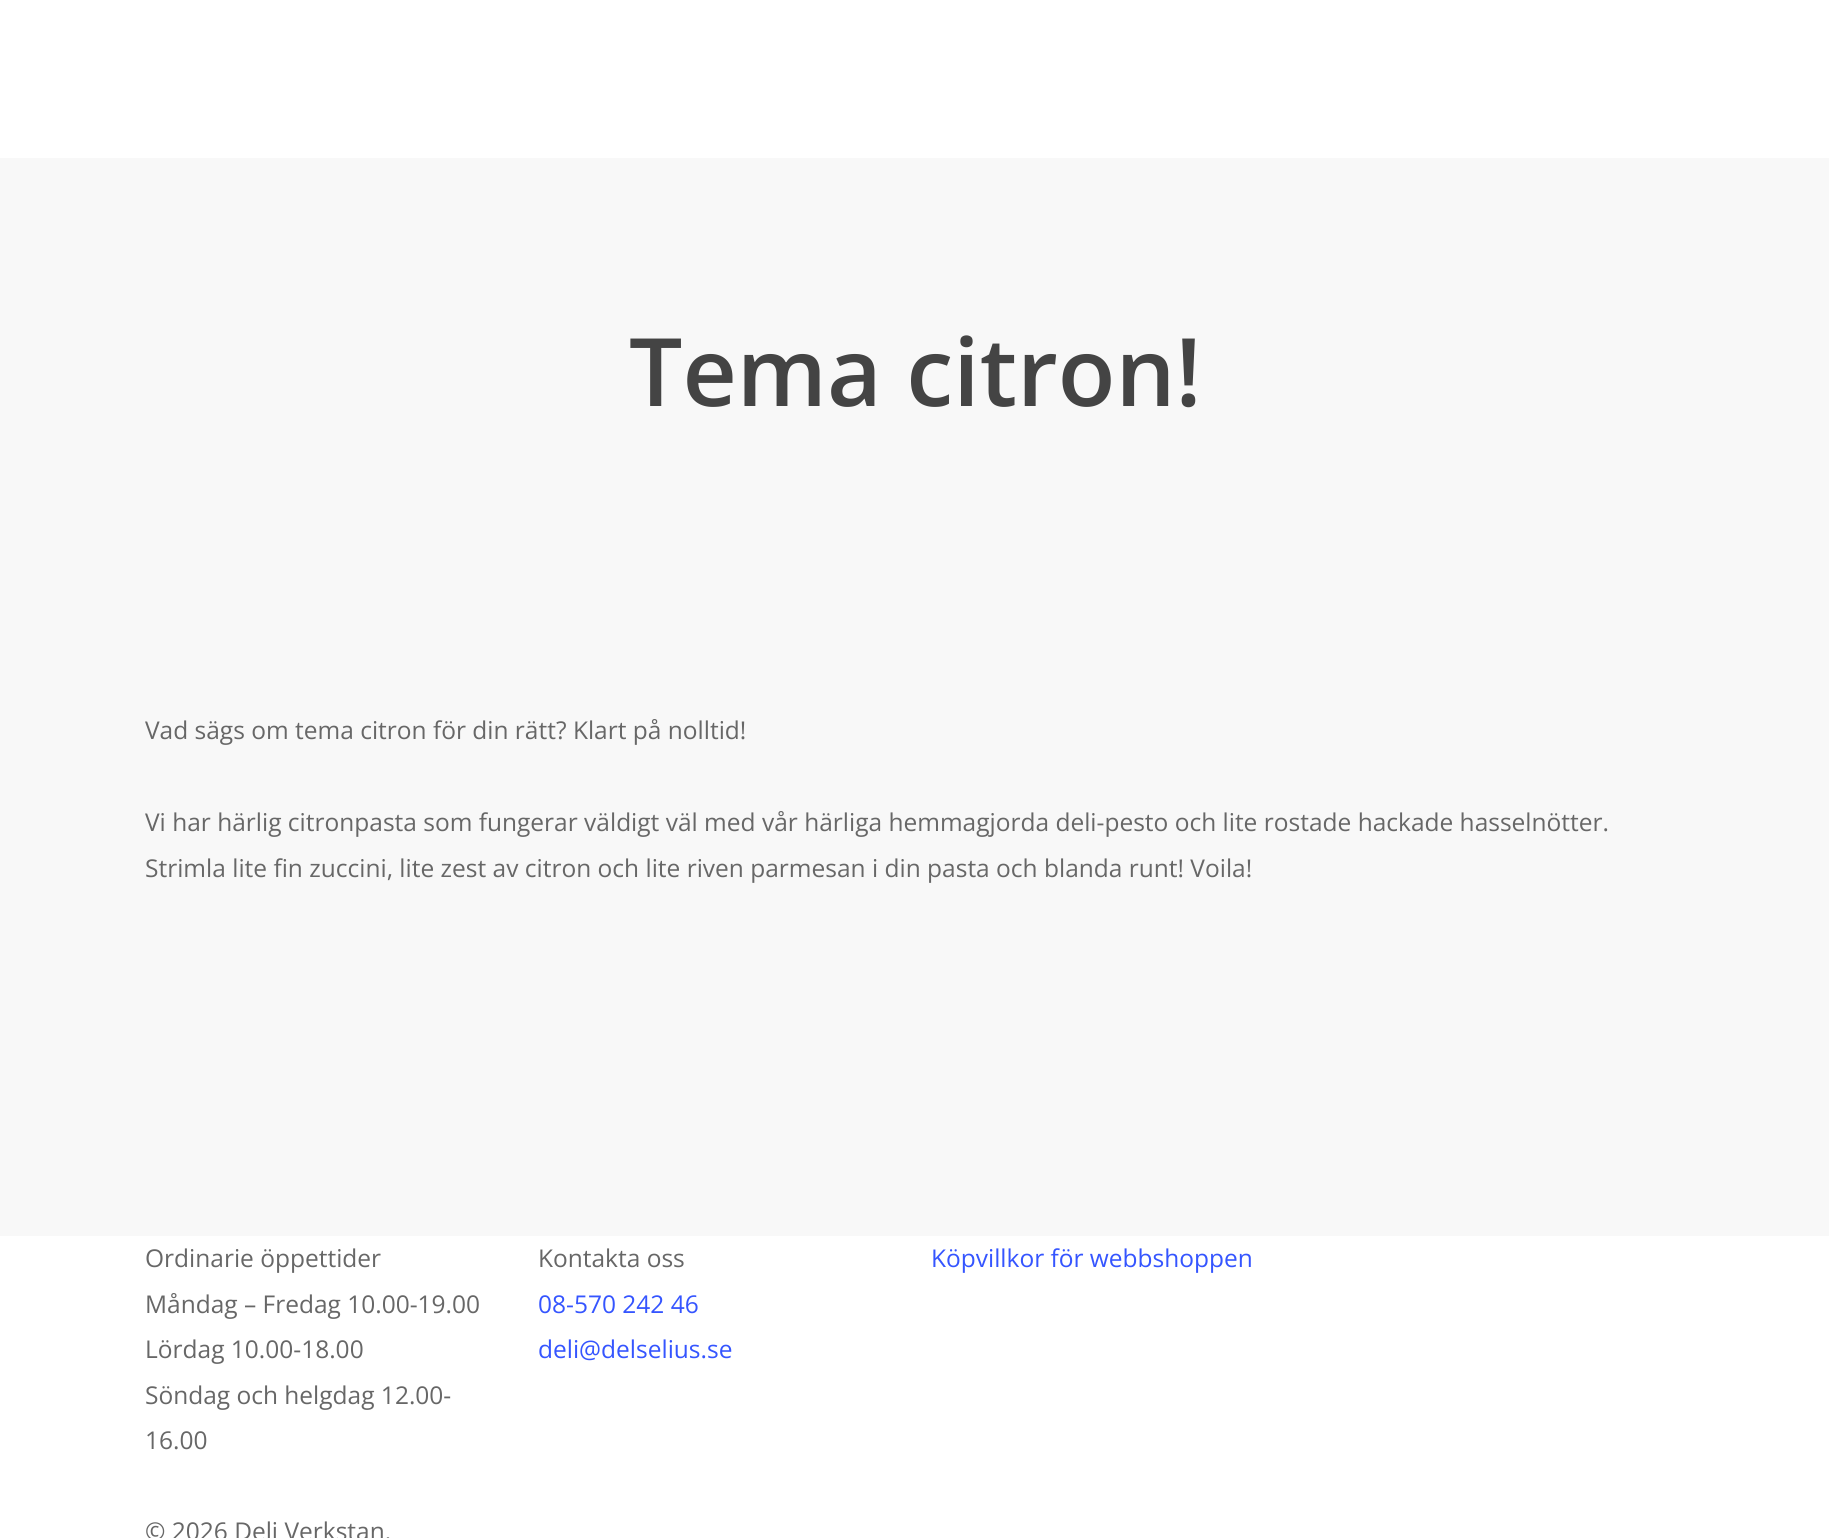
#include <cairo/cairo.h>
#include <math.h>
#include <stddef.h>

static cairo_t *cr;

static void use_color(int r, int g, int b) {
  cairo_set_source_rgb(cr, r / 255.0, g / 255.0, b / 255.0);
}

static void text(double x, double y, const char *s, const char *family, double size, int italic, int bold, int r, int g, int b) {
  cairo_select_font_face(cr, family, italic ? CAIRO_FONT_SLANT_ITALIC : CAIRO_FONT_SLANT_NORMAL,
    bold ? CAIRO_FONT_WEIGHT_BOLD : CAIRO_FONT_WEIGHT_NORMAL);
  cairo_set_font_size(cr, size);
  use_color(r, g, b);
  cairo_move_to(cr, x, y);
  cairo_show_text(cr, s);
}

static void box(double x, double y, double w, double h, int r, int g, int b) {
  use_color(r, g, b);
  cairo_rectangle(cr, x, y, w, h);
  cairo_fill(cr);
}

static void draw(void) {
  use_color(255, 255, 255);
  cairo_paint(cr);
  box(0, 158, 1829, 1078, 248, 248, 248);
  text(629, 406, "Tema citron!", "Open Sans SemiBold", 94.5, 0, 0, 68, 68, 68);
  text(145, 739, "Vad sägs om tema citron för din rätt? Klart på nolltid!", "Open Sans", 24.5, 0, 0, 103, 103, 103);
  text(145, 831, "Vi har härlig citronpasta som fungerar väldigt väl med vår härliga hemmagjorda deli-pesto och lite rostade hackade hasselnötter.", "Open Sans", 24.5, 0, 0, 103, 103, 103);
  text(145, 877, "Strimla lite fin zuccini, lite zest av citron och lite riven parmesan i din pasta och blanda runt! Voila!", "Open Sans", 24.5, 0, 0, 103, 103, 103);
  text(145, 1267, "Ordinarie öppettider", "Open Sans", 24.5, 0, 0, 103, 103, 103);
  text(145, 1313, "Måndag – Fredag 10.00-19.00", "Open Sans", 24.5, 0, 0, 103, 103, 103);
  text(145, 1358, "Lördag 10.00-18.00", "Open Sans", 24.5, 0, 0, 103, 103, 103);
  text(145, 1404, "Söndag och helgdag 12.00-", "Open Sans", 24.5, 0, 0, 103, 103, 103);
  text(145, 1449, "16.00", "Open Sans", 24.5, 0, 0, 103, 103, 103);
  text(538, 1267, "Kontakta oss", "Open Sans", 24.5, 0, 0, 103, 103, 103);
  text(538, 1313, "08-570 242 46", "Open Sans", 24.5, 0, 0, 53, 85, 255);
  text(538, 1358, "deli@delselius.se", "Open Sans", 24.5, 0, 0, 53, 85, 255);
  text(931, 1267, "Köpvillkor för webbshoppen", "Open Sans", 24.5, 0, 0, 53, 85, 255);
  text(145, 1540, "© 2026 Deli Verkstan.", "Open Sans", 24.5, 0, 0, 103, 103, 103);
}

int main(void) {
  cairo_surface_t *surface = cairo_image_surface_create(CAIRO_FORMAT_RGB24, 1829, 1538);
  cr = cairo_create(surface);
  cairo_font_options_t *options = cairo_font_options_create();
  cairo_font_options_set_hint_metrics(options, CAIRO_HINT_METRICS_OFF);
  cairo_font_options_set_hint_style(options, CAIRO_HINT_STYLE_NONE);
  cairo_set_font_options(cr, options);
  cairo_set_miter_limit(cr, 4);
  draw();
  cairo_surface_write_to_png(surface, "out.png");
  cairo_font_options_destroy(options);
  cairo_destroy(cr);
  cairo_surface_destroy(surface);
  return 0;
}
